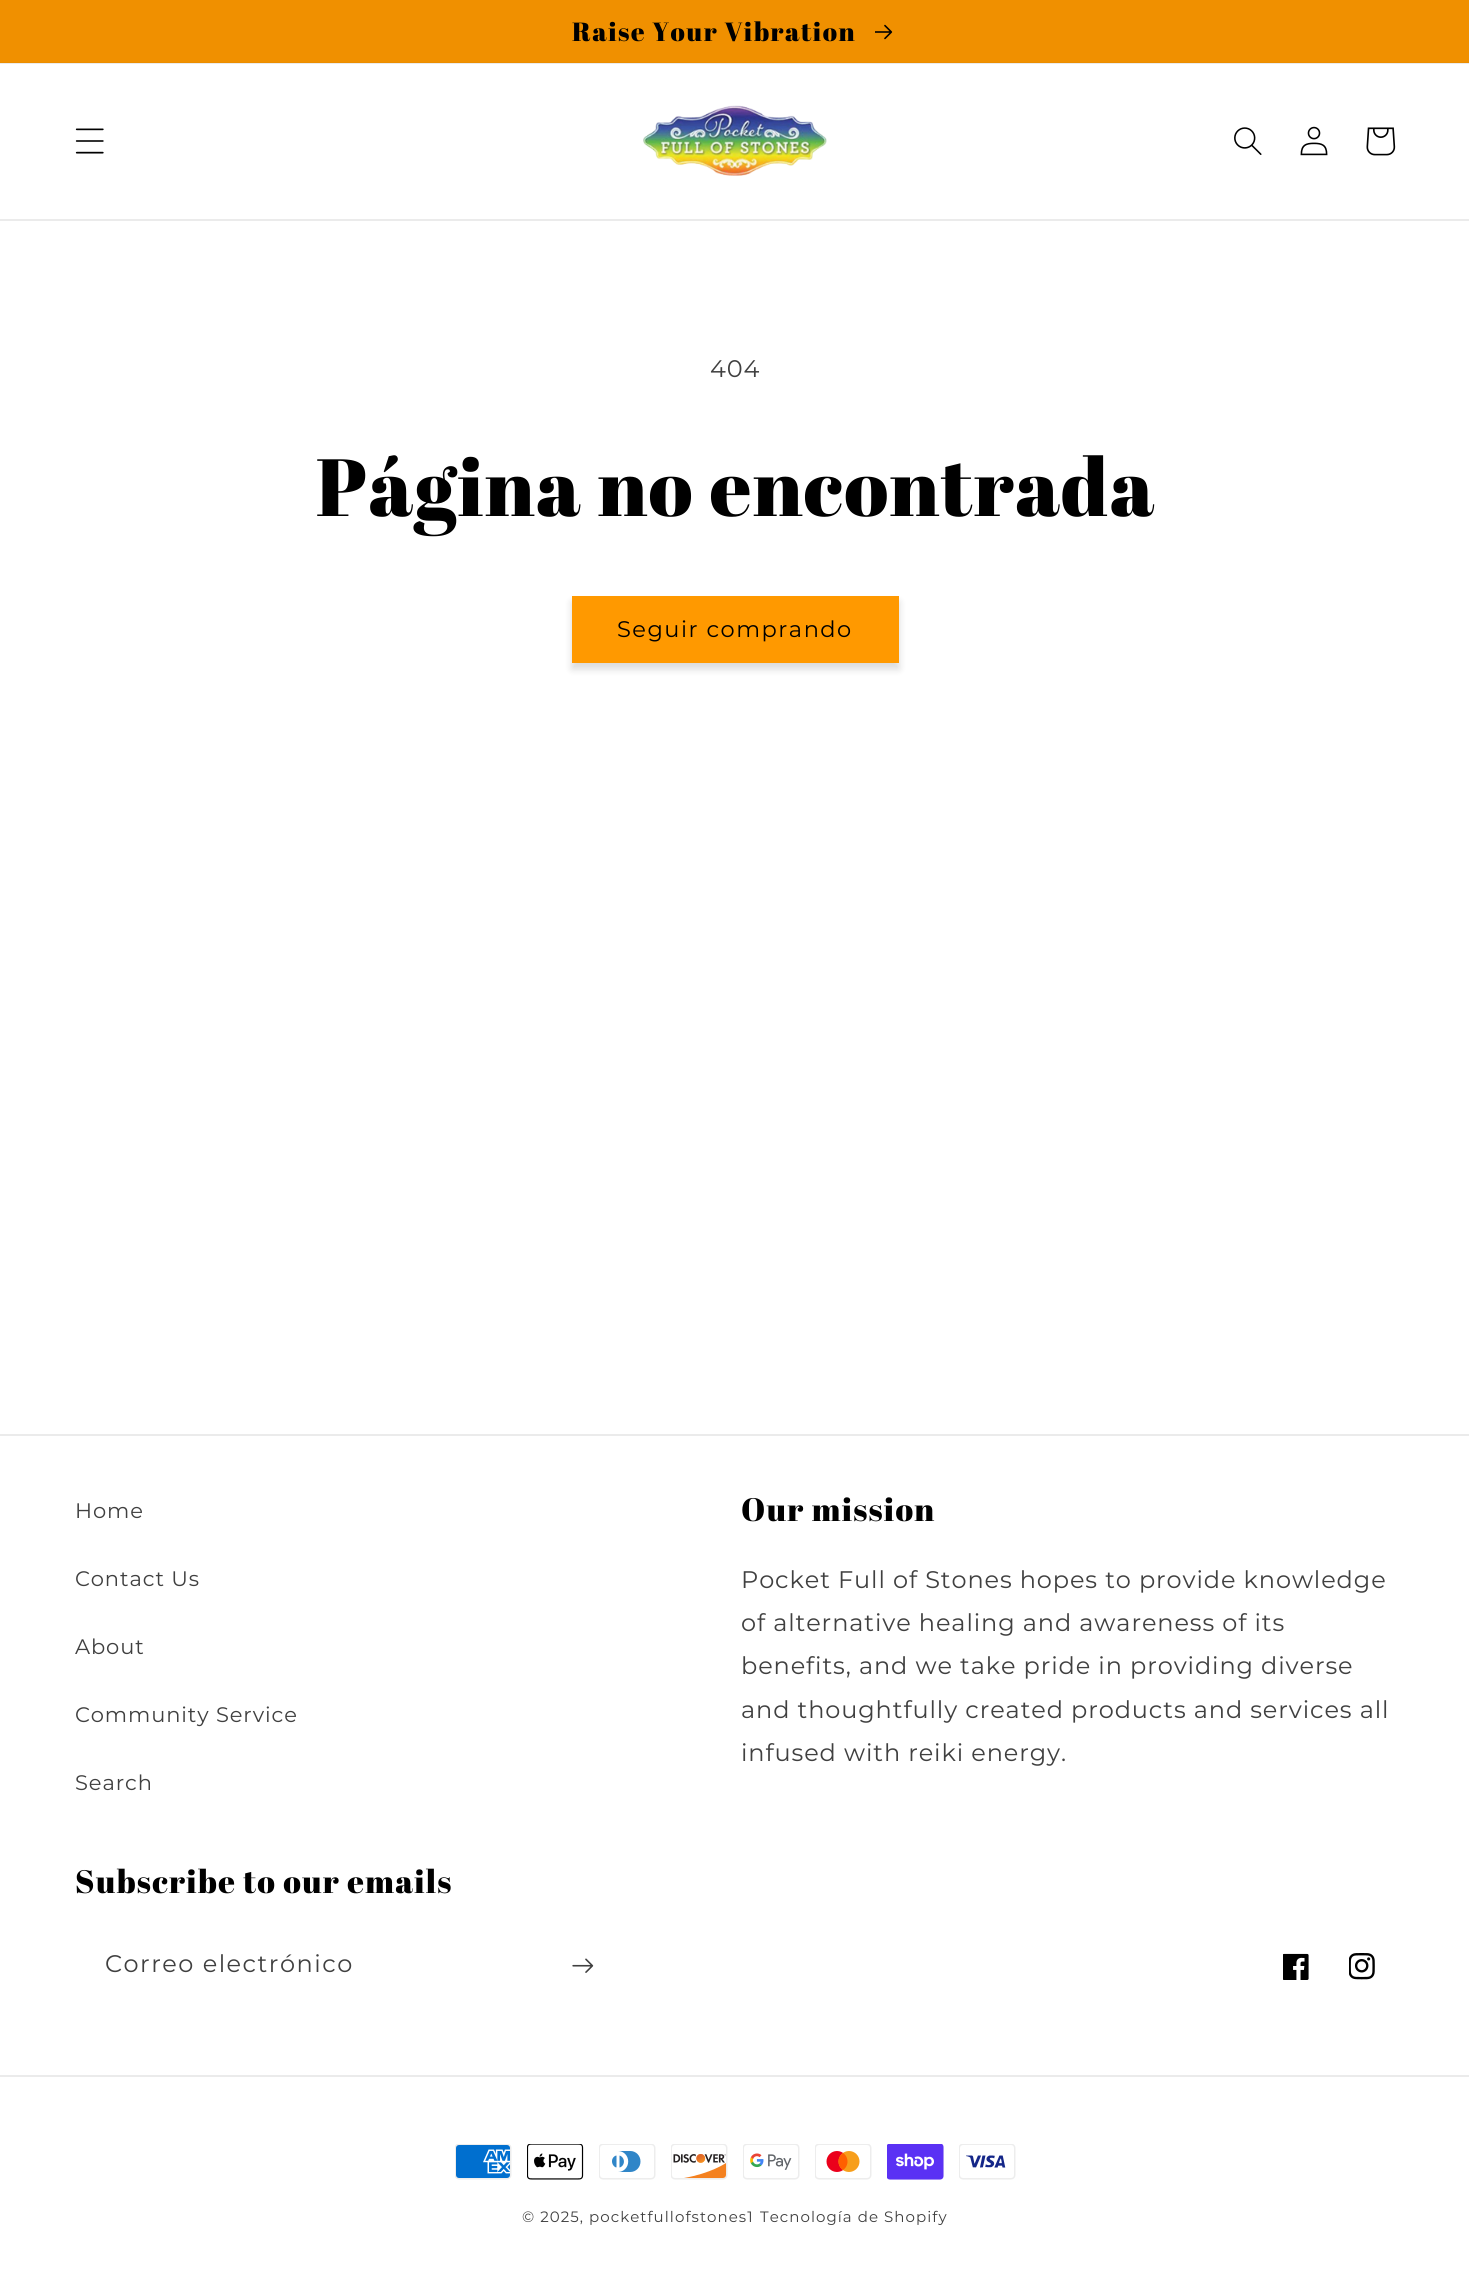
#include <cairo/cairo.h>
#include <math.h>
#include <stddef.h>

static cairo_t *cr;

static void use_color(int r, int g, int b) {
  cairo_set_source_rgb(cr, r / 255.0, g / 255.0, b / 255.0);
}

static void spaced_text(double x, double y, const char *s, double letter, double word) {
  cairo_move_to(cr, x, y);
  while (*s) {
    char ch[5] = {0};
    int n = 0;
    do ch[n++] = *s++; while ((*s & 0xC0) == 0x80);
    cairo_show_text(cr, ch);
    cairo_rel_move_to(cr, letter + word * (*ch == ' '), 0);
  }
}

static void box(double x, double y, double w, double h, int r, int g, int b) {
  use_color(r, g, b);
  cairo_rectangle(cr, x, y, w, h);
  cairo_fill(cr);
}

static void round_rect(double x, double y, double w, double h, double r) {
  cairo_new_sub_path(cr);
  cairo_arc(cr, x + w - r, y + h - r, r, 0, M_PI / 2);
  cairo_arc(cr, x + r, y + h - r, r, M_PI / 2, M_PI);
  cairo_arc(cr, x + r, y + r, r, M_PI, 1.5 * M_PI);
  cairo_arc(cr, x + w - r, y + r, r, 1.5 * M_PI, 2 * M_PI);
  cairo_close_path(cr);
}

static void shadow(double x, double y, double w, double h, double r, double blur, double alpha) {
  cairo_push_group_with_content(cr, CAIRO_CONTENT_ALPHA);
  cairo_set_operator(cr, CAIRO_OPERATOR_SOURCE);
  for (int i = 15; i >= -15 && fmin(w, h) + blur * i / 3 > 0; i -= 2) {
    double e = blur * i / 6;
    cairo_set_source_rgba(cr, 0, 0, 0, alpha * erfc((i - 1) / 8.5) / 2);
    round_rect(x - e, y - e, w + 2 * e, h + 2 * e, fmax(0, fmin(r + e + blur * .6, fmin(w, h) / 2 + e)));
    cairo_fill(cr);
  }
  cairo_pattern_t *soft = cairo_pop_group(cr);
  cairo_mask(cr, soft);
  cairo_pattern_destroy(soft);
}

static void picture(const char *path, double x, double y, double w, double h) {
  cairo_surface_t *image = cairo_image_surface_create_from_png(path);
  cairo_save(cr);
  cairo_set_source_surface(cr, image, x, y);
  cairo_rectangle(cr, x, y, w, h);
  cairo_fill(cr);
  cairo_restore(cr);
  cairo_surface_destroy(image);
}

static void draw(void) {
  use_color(255, 255, 255);
  cairo_paint(cr);
  box(0, 63, 1469, 1, 235, 235, 235);
  box(0, 62, 1469, 1, 235, 141, 0);
  box(0, 0, 1469, 62, 240, 144, 0);
  picture("img_01.png", 875, 24, 18, 16);
  box(0, 219, 1469, 2, 235, 235, 235);
  picture("img_02.png", 75, 128, 29, 26);
  picture("img_03.png", 643, 105, 184, 71);
  picture("img_04.png", 1234, 127, 28, 28);
  picture("img_05.png", 1300, 126, 28, 30);
  picture("img_06.png", 1366, 127, 30, 29);
  use_color(0, 0, 0);
  shadow(572, 602, 327, 67, 0, 4, 0.15);
  box(572, 596, 327, 67, 255, 153, 0);
  box(0, 1434, 1469, 2, 235, 235, 235);
  picture("img_07.png", 572, 1958, 22, 15);
  picture("img_08.png", 1283, 1953, 26, 27);
  picture("img_09.png", 1349, 1953, 26, 27);
  box(0, 2075, 1469, 2, 235, 235, 235);
  picture("img_10.png", 455, 2144, 57, 36);
  picture("img_11.png", 527, 2144, 57, 36);
  picture("img_12.png", 599, 2144, 57, 36);
  picture("img_13.png", 671, 2144, 57, 36);
  picture("img_14.png", 743, 2144, 57, 36);
  picture("img_15.png", 815, 2144, 57, 36);
  picture("img_16.png", 887, 2144, 57, 36);
  picture("img_17.png", 959, 2144, 57, 36);
  cairo_select_font_face(cr, "Abril Fatface", CAIRO_FONT_SLANT_NORMAL, CAIRO_FONT_WEIGHT_NORMAL);
  cairo_set_font_size(cr, 26.25);
  use_color(0, 0, 0);
  spaced_text(572, 41, "Raise Your Vibration", 1.5, 0);
  cairo_select_font_face(cr, "Montserrat", CAIRO_FONT_SLANT_NORMAL, CAIRO_FONT_WEIGHT_NORMAL);
  cairo_set_font_size(cr, 24);
  use_color(64, 64, 64);
  spaced_text(710, 377, "404", 0.9, 0);
  cairo_select_font_face(cr, "Abril Fatface", CAIRO_FONT_SLANT_NORMAL, CAIRO_FONT_WEIGHT_NORMAL);
  cairo_set_font_size(cr, 81);
  use_color(0, 0, 0);
  spaced_text(316, 516, "Página no encontrada", 1.25, 0);
  cairo_select_font_face(cr, "Montserrat", CAIRO_FONT_SLANT_NORMAL, CAIRO_FONT_WEIGHT_NORMAL);
  cairo_set_font_size(cr, 22.5);
  spaced_text(617, 637, "Seguir comprando", 1.5, 0);
  cairo_set_font_size(cr, 21);
  use_color(64, 64, 64);
  spaced_text(75, 1518, "Home", 0.9, 0);
  spaced_text(75, 1586, "Contact Us", 0.9, 0);
  spaced_text(75, 1654, "About", 0.9, 0);
  spaced_text(75, 1722, "Community Service", 0.9, 0);
  spaced_text(75, 1790, "Search", 0.9, 0);
  cairo_select_font_face(cr, "Abril Fatface", CAIRO_FONT_SLANT_NORMAL, CAIRO_FONT_WEIGHT_NORMAL);
  cairo_set_font_size(cr, 32.4);
  use_color(0, 0, 0);
  spaced_text(741, 1521, "Our mission", 1.25, 0);
  cairo_select_font_face(cr, "Montserrat", CAIRO_FONT_SLANT_NORMAL, CAIRO_FONT_WEIGHT_NORMAL);
  cairo_set_font_size(cr, 24);
  use_color(64, 64, 64);
  spaced_text(741, 1588, "Pocket Full of Stones hopes to provide knowledge", 0.9, 0);
  spaced_text(741, 1631, "of alternative healing and awareness of its", 0.9, 0);
  spaced_text(741, 1674, "benefits, and we take pride in providing diverse", 0.9, 0);
  spaced_text(741, 1718, "and thoughtfully created products and services all", 0.9, 0);
  spaced_text(741, 1761, "infused with reiki energy.", 0.9, 0);
  cairo_select_font_face(cr, "Abril Fatface", CAIRO_FONT_SLANT_NORMAL, CAIRO_FONT_WEIGHT_NORMAL);
  cairo_set_font_size(cr, 32.4);
  use_color(0, 0, 0);
  spaced_text(75, 1893, "Subscribe to our emails", 1.25, 0);
  cairo_select_font_face(cr, "Montserrat", CAIRO_FONT_SLANT_NORMAL, CAIRO_FONT_WEIGHT_NORMAL);
  cairo_set_font_size(cr, 24);
  use_color(64, 64, 64);
  spaced_text(105, 1972, "Correo electrónico", 1.5, 0);
  cairo_set_font_size(cr, 15);
  spaced_text(522, 2222, "© 2025, pocketfullofstones1", 1.05, 0);
  spaced_text(760, 2222, "Tecnología de Shopify", 1.05, 0);
}

int main(void) {
  cairo_surface_t *surface = cairo_image_surface_create(CAIRO_FORMAT_RGB24, 1469, 2285);
  cr = cairo_create(surface);
  cairo_font_options_t *options = cairo_font_options_create();
  cairo_font_options_set_hint_metrics(options, CAIRO_HINT_METRICS_OFF);
  cairo_font_options_set_hint_style(options, CAIRO_HINT_STYLE_NONE);
  cairo_set_font_options(cr, options);
  cairo_set_miter_limit(cr, 4);
  draw();
  cairo_surface_write_to_png(surface, "out.png");
  cairo_font_options_destroy(options);
  cairo_destroy(cr);
  cairo_surface_destroy(surface);
  return 0;
}
